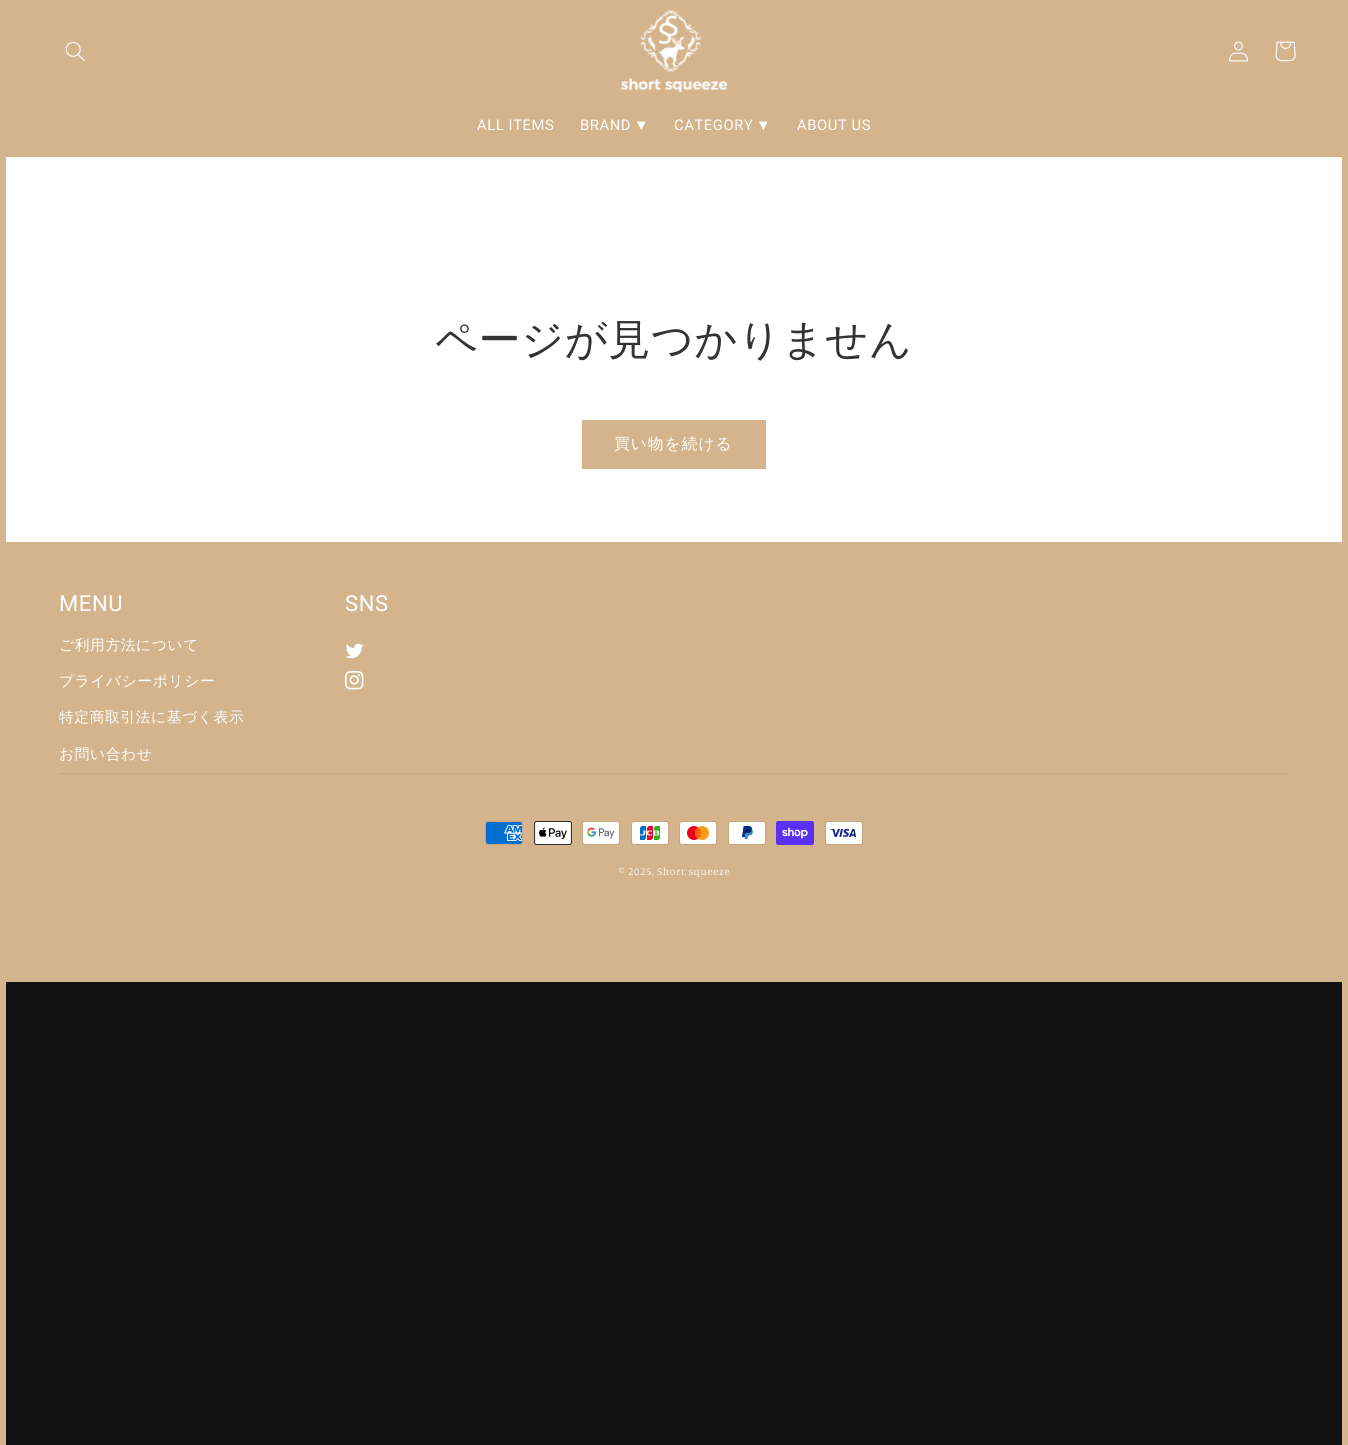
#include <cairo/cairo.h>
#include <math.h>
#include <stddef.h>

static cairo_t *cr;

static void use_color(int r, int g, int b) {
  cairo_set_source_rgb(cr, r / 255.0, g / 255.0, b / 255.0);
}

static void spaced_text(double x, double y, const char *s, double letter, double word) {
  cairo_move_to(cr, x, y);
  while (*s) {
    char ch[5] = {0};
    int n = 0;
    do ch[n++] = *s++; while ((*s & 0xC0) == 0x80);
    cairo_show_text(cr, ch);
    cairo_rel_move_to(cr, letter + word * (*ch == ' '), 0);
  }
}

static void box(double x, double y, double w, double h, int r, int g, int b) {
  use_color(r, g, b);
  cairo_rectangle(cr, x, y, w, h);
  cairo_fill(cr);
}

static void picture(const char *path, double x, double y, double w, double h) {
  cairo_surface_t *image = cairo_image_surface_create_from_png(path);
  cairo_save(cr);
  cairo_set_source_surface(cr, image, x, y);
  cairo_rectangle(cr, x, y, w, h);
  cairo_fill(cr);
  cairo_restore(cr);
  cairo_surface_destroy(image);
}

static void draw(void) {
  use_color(255, 255, 255);
  cairo_paint(cr);
  box(1342, 157, 6, 1288, 211, 180, 140);
  box(0, 157, 6, 1288, 211, 180, 140);
  box(0, 0, 1348, 157, 211, 180, 140);
  picture("img_01.png", 65, 41, 20, 21);
  picture("img_02.png", 621, 10, 106, 82);
  picture("img_03.png", 1229, 41, 19, 21);
  picture("img_04.png", 1275, 41, 21, 21);
  box(582, 420, 184, 49, 211, 180, 140);
  box(6, 982, 1336, 463, 17, 17, 17);
  box(6, 542, 1336, 440, 211, 180, 140);
  picture("img_05.png", 345, 643, 19, 16);
  picture("img_06.png", 345, 671, 19, 19);
  box(59, 773, 1231, 1, 195, 170, 135);
  picture("img_07.png", 485, 821, 38, 24);
  picture("img_08.png", 534, 821, 38, 24);
  picture("img_09.png", 582, 821, 38, 24);
  picture("img_10.png", 631, 821, 38, 24);
  picture("img_11.png", 679, 821, 38, 24);
  picture("img_12.png", 728, 821, 38, 24);
  picture("img_13.png", 776, 821, 38, 24);
  picture("img_14.png", 825, 821, 38, 24);
  cairo_select_font_face(cr, "Roboto", CAIRO_FONT_SLANT_NORMAL, CAIRO_FONT_WEIGHT_NORMAL);
  cairo_set_font_size(cr, 14.75);
  use_color(255, 255, 255);
  spaced_text(477, 130, "ALL ITEMS", 0.6, 0);
  spaced_text(580, 130, "BRAND", 0.6, 0);
  cairo_select_font_face(cr, "Liberation Sans", CAIRO_FONT_SLANT_NORMAL, CAIRO_FONT_WEIGHT_NORMAL);
  spaced_text(634, 130, "▼", 0.6, 0);
  cairo_select_font_face(cr, "Roboto", CAIRO_FONT_SLANT_NORMAL, CAIRO_FONT_WEIGHT_NORMAL);
  spaced_text(674, 130, "CATEGORY", 0.6, 0);
  cairo_select_font_face(cr, "Liberation Sans", CAIRO_FONT_SLANT_NORMAL, CAIRO_FONT_WEIGHT_NORMAL);
  spaced_text(756, 130, "▼", 0.6, 0);
  cairo_select_font_face(cr, "Roboto", CAIRO_FONT_SLANT_NORMAL, CAIRO_FONT_WEIGHT_NORMAL);
  spaced_text(797, 130, "ABOUT US", 0.6, 0);
  cairo_select_font_face(cr, "WenQuanYi Zen Hei Medium", CAIRO_FONT_SLANT_NORMAL, CAIRO_FONT_WEIGHT_NORMAL);
  cairo_set_font_size(cr, 42);
  use_color(51, 51, 51);
  spaced_text(435, 354, "ページが見つかりません", 0.6, 0);
  cairo_set_font_size(cr, 15.75);
  use_color(255, 255, 255);
  spaced_text(614, 449, "買い物を続ける", 1, 0);
  cairo_select_font_face(cr, "Roboto", CAIRO_FONT_SLANT_NORMAL, CAIRO_FONT_WEIGHT_NORMAL);
  cairo_set_font_size(cr, 22);
  spaced_text(59, 611, "MENU", 0.6, 0);
  cairo_select_font_face(cr, "WenQuanYi Zen Hei Medium", CAIRO_FONT_SLANT_NORMAL, CAIRO_FONT_WEIGHT_NORMAL);
  cairo_set_font_size(cr, 14.75);
  spaced_text(59, 650, "ご利用方法について", 0.6, 0);
  spaced_text(59, 686, "プライバシーポリシー", 0.6, 0);
  spaced_text(59, 722, "特定商取引法に基づく表示", 0.6, 0);
  spaced_text(59, 759, "お問い合わせ", 0.6, 0);
  cairo_select_font_face(cr, "Roboto", CAIRO_FONT_SLANT_NORMAL, CAIRO_FONT_WEIGHT_NORMAL);
  cairo_set_font_size(cr, 22);
  spaced_text(345, 611, "SNS", 0.6, 0);
  cairo_select_font_face(cr, "Manuale Light", CAIRO_FONT_SLANT_NORMAL, CAIRO_FONT_WEIGHT_NORMAL);
  cairo_set_font_size(cr, 10.5);
  spaced_text(619, 875, "© 2025, Short squeeze", 0.75, 0);
}

int main(void) {
  cairo_surface_t *surface = cairo_image_surface_create(CAIRO_FORMAT_RGB24, 1348, 1445);
  cr = cairo_create(surface);
  cairo_font_options_t *options = cairo_font_options_create();
  cairo_font_options_set_hint_metrics(options, CAIRO_HINT_METRICS_OFF);
  cairo_font_options_set_hint_style(options, CAIRO_HINT_STYLE_NONE);
  cairo_set_font_options(cr, options);
  cairo_set_miter_limit(cr, 4);
  draw();
  cairo_surface_write_to_png(surface, "out.png");
  cairo_font_options_destroy(options);
  cairo_destroy(cr);
  cairo_surface_destroy(surface);
  return 0;
}
